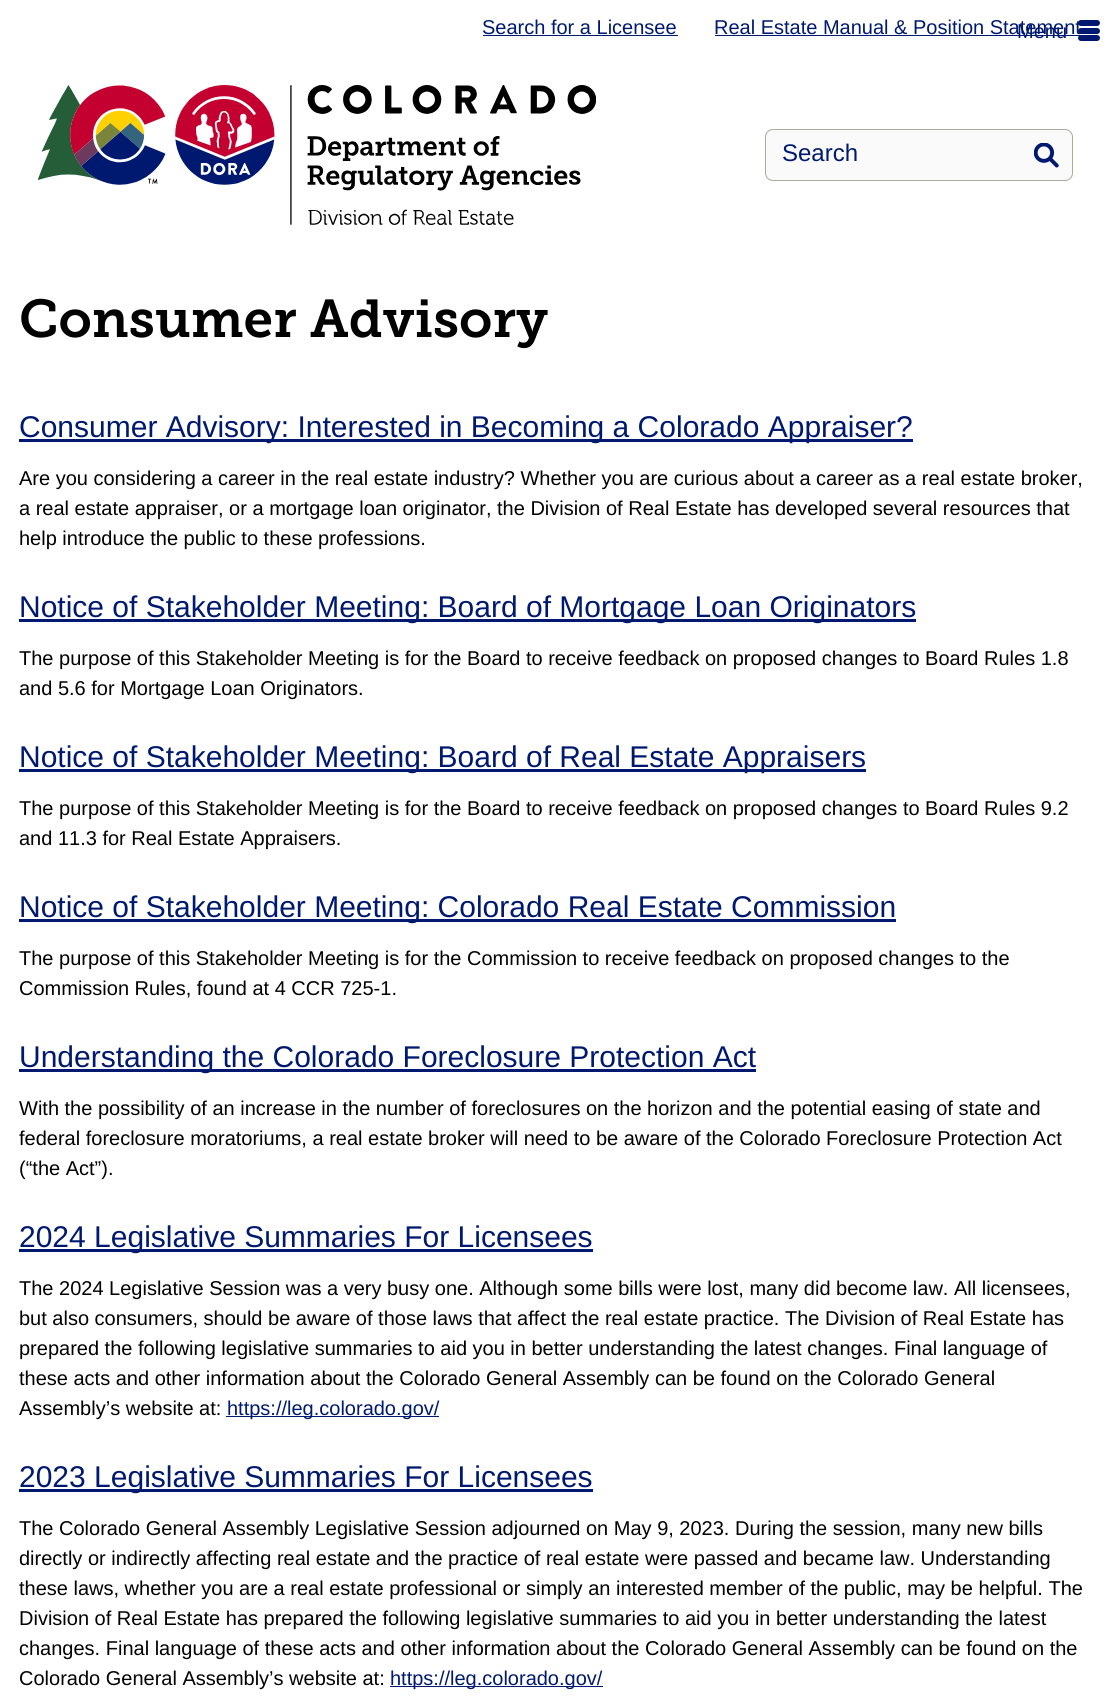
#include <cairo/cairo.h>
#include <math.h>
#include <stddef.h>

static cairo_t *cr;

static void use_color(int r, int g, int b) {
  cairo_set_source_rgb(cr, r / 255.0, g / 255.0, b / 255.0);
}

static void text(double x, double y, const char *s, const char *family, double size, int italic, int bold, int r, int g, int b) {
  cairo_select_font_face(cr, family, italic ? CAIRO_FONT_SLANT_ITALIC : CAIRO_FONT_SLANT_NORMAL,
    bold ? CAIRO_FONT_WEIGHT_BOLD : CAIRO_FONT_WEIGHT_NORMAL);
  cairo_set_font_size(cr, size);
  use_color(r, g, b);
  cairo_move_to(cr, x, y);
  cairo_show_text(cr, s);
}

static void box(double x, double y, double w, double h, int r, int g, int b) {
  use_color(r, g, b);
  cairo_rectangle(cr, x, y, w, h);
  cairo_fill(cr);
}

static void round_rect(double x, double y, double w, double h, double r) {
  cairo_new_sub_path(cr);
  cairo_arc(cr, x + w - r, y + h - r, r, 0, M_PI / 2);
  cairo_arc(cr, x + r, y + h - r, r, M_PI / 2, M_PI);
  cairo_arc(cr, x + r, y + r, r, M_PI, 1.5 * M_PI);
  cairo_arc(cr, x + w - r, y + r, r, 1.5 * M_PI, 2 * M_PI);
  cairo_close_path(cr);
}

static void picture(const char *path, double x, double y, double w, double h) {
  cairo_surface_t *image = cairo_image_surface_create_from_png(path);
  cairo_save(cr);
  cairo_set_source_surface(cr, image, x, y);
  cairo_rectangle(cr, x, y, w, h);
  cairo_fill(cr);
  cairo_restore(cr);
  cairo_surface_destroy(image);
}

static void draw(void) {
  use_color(255, 255, 255);
  cairo_paint(cr);
  box(483, 35, 195, 1, 0, 25, 112);
  box(715, 35, 366, 1, 0, 25, 112);
  picture("img_01.png", 38, 85, 558, 140);
  use_color(250, 250, 250);
  round_rect(765.5, 129.5, 307, 51, 7.5);
  cairo_fill_preserve(cr);
  use_color(169, 171, 160);
  cairo_set_line_width(cr, 1);
  cairo_stroke(cr);
  picture("img_02.png", 1034, 143, 25, 25);
  use_color(0, 25, 112);
  round_rect(1078, 20, 22, 6, 3);
  cairo_fill(cr);
  round_rect(1078, 28, 22, 6, 3);
  cairo_fill(cr);
  round_rect(1078, 35, 22, 6, 3);
  cairo_fill(cr);
  box(19, 439, 894, 3, 0, 25, 112);
  box(19, 619, 897, 3, 0, 25, 112);
  box(19, 769, 847, 3, 0, 25, 112);
  box(19, 919, 877, 3, 0, 25, 112);
  box(19, 1069, 737, 3, 0, 25, 112);
  box(19, 1249, 574, 3, 0, 25, 112);
  box(226, 1416, 213, 1, 0, 25, 112);
  box(19, 1489, 574, 3, 0, 25, 112);
  box(390, 1686, 213, 1, 0, 25, 112);
  text(482, 34, "Search for a Licensee", "Liberation Sans", 20, 0, 0, 0, 25, 112);
  text(714, 34, "Real Estate Manual & Position Statement", "Liberation Sans", 20, 0, 0, 0, 25, 112);
  text(782, 161, "Search", "Liberation Sans", 24, 0, 0, 0, 25, 112);
  text(1017, 38, "Menu", "Liberation Sans", 20, 0, 0, 0, 25, 112);
  text(19, 337, "Consumer Advisory", "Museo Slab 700 SemiBold", 53, 0, 0, 0, 0, 0);
  text(19, 437, "Consumer Advisory: Interested in Becoming a Colorado Appraiser?", "Liberation Sans", 30, 0, 0, 0, 25, 112);
  text(19, 485, "Are you considering a career in the real estate industry? Whether you are curious about a career as a real estate broker,", "Liberation Sans", 20, 0, 0, 0, 0, 0);
  text(19, 515, "a real estate appraiser, or a mortgage loan originator, the Division of Real Estate has developed several resources that", "Liberation Sans", 20, 0, 0, 0, 0, 0);
  text(19, 545, "help introduce the public to these professions.", "Liberation Sans", 20, 0, 0, 0, 0, 0);
  text(19, 617, "Notice of Stakeholder Meeting: Board of Mortgage Loan Originators", "Liberation Sans", 30, 0, 0, 0, 25, 112);
  text(19, 665, "The purpose of this Stakeholder Meeting is for the Board to receive feedback on proposed changes to Board Rules 1.8", "Liberation Sans", 20, 0, 0, 0, 0, 0);
  text(19, 695, "and 5.6 for Mortgage Loan Originators.", "Liberation Sans", 20, 0, 0, 0, 0, 0);
  text(19, 767, "Notice of Stakeholder Meeting: Board of Real Estate Appraisers", "Liberation Sans", 30, 0, 0, 0, 25, 112);
  text(19, 815, "The purpose of this Stakeholder Meeting is for the Board to receive feedback on proposed changes to Board Rules 9.2", "Liberation Sans", 20, 0, 0, 0, 0, 0);
  text(19, 845, "and 11.3 for Real Estate Appraisers.", "Liberation Sans", 20, 0, 0, 0, 0, 0);
  text(19, 917, "Notice of Stakeholder Meeting: Colorado Real Estate Commission", "Liberation Sans", 30, 0, 0, 0, 25, 112);
  text(19, 965, "The purpose of this Stakeholder Meeting is for the Commission to receive feedback on proposed changes to the", "Liberation Sans", 20, 0, 0, 0, 0, 0);
  text(19, 995, "Commission Rules, found at 4 CCR 725-1.", "Liberation Sans", 20, 0, 0, 0, 0, 0);
  text(19, 1067, "Understanding the Colorado Foreclosure Protection Act", "Liberation Sans", 30, 0, 0, 0, 25, 112);
  text(19, 1115, "With the possibility of an increase in the number of foreclosures on the horizon and the potential easing of state and", "Liberation Sans", 20, 0, 0, 0, 0, 0);
  text(19, 1145, "federal foreclosure moratoriums, a real estate broker will need to be aware of the Colorado Foreclosure Protection Act", "Liberation Sans", 20, 0, 0, 0, 0, 0);
  text(19, 1175, "(“the Act”).", "Liberation Sans", 20, 0, 0, 0, 0, 0);
  text(19, 1247, "2024 Legislative Summaries For Licensees", "Liberation Sans", 30, 0, 0, 0, 25, 112);
  text(19, 1295, "The 2024 Legislative Session was a very busy one. Although some bills were lost, many did become law. All licensees,", "Liberation Sans", 20, 0, 0, 0, 0, 0);
  text(19, 1325, "but also consumers, should be aware of those laws that affect the real estate practice. The Division of Real Estate has", "Liberation Sans", 20, 0, 0, 0, 0, 0);
  text(19, 1355, "prepared the following legislative summaries to aid you in better understanding the latest changes. Final language of", "Liberation Sans", 20, 0, 0, 0, 0, 0);
  text(19, 1385, "these acts and other information about the Colorado General Assembly can be found on the Colorado General", "Liberation Sans", 20, 0, 0, 0, 0, 0);
  text(19, 1415, "Assembly’s website at:", "Liberation Sans", 20, 0, 0, 0, 0, 0);
  text(227, 1415, "https://leg.colorado.gov/", "Liberation Sans", 20, 0, 0, 0, 25, 112);
  text(19, 1487, "2023 Legislative Summaries For Licensees", "Liberation Sans", 30, 0, 0, 0, 25, 112);
  text(19, 1535, "The Colorado General Assembly Legislative Session adjourned on May 9, 2023. During the session, many new bills", "Liberation Sans", 20, 0, 0, 0, 0, 0);
  text(19, 1565, "directly or indirectly affecting real estate and the practice of real estate were passed and became law. Understanding", "Liberation Sans", 20, 0, 0, 0, 0, 0);
  text(19, 1595, "these laws, whether you are a real estate professional or simply an interested member of the public, may be helpful. The", "Liberation Sans", 20, 0, 0, 0, 0, 0);
  text(19, 1625, "Division of Real Estate has prepared the following legislative summaries to aid you in better understanding the latest", "Liberation Sans", 20, 0, 0, 0, 0, 0);
  text(19, 1655, "changes. Final language of these acts and other information about the Colorado General Assembly can be found on the", "Liberation Sans", 20, 0, 0, 0, 0, 0);
  text(19, 1685, "Colorado General Assembly’s website at:", "Liberation Sans", 20, 0, 0, 0, 0, 0);
  text(390, 1685, "https://leg.colorado.gov/", "Liberation Sans", 20, 0, 0, 0, 25, 112);
}

int main(void) {
  cairo_surface_t *surface = cairo_image_surface_create(CAIRO_FORMAT_RGB24, 1110, 1700);
  cr = cairo_create(surface);
  cairo_font_options_t *options = cairo_font_options_create();
  cairo_font_options_set_hint_metrics(options, CAIRO_HINT_METRICS_OFF);
  cairo_font_options_set_hint_style(options, CAIRO_HINT_STYLE_NONE);
  cairo_set_font_options(cr, options);
  cairo_set_miter_limit(cr, 4);
  draw();
  cairo_surface_write_to_png(surface, "out.png");
  cairo_font_options_destroy(options);
  cairo_destroy(cr);
  cairo_surface_destroy(surface);
  return 0;
}
